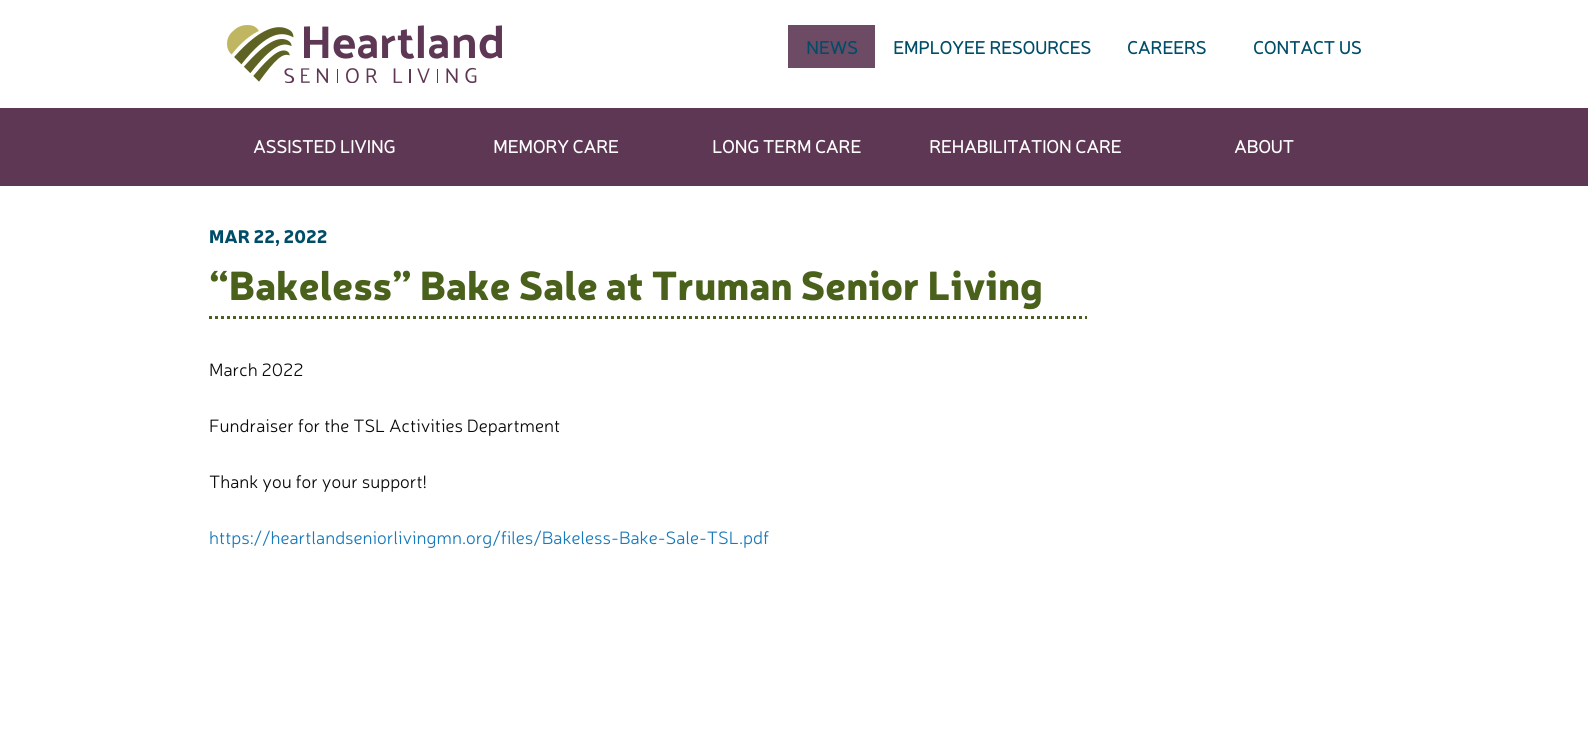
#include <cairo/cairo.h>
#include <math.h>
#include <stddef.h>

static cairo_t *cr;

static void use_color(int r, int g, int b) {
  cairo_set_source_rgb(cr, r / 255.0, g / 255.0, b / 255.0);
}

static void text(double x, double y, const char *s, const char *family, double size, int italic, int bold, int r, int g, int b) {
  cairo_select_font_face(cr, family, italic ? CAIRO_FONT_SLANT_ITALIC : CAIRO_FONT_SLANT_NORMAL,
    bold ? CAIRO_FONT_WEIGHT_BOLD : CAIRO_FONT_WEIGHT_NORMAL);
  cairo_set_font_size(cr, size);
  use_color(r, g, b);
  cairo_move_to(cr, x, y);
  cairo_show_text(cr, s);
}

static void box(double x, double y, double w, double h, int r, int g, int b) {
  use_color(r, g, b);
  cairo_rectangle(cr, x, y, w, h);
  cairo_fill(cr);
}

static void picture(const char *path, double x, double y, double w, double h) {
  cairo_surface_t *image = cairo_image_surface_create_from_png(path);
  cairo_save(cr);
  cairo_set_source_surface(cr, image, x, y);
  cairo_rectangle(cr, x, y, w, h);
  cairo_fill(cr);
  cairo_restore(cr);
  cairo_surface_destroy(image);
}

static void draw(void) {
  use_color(255, 255, 255);
  cairo_paint(cr);
  picture("img_01.png", 227, 25, 275, 58);
  box(788, 25, 87, 43, 109, 75, 101);
  box(0, 108, 1588, 78, 93, 55, 84);
  cairo_new_path(cr);
  cairo_move_to(cr, 209, 317.5);
  cairo_line_to(cr, 1087, 317.5);
  use_color(74, 97, 28);
  cairo_set_line_width(cr, 3);
  cairo_set_dash(cr, (double[]){3, 3}, 2, 0);
  cairo_stroke(cr);
  text(806, 54, "NEWS", "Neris", 18, 0, 1, 0, 77, 105);
  text(893, 54, "EMPLOYEE RESOURCES", "Neris", 18, 0, 1, 0, 77, 105);
  text(1127, 54, "CAREERS", "Neris", 18, 0, 1, 0, 77, 105);
  text(1253, 54, "CONTACT US", "Neris", 18, 0, 1, 0, 77, 105);
  text(253, 153, "ASSISTED LIVING", "Neris", 18, 0, 1, 254, 254, 254);
  text(493, 153, "MEMORY CARE", "Neris", 18, 0, 1, 254, 254, 254);
  text(712, 153, "LONG TERM CARE", "Neris", 18, 0, 1, 254, 254, 254);
  text(929, 153, "REHABILITATION CARE", "Neris", 18, 0, 1, 254, 254, 254);
  text(1234, 153, "ABOUT", "Neris", 18, 0, 1, 254, 254, 254);
  text(209, 243, "MAR 22, 2022", "Neris Black", 18, 0, 0, 0, 77, 105);
  text(209, 300, "“Bakeless” Bake Sale at Truman Senior Living", "Neris Black", 40, 0, 0, 74, 97, 28);
  text(209, 376, "March 2022", "Neris Light", 18, 0, 0, 10, 10, 10);
  text(209, 432, "Fundraiser for the TSL Activities Department", "Neris Light", 18, 0, 0, 10, 10, 10);
  text(209, 488, "Thank you for your support!", "Neris Light", 18, 0, 0, 10, 10, 10);
  text(209, 544, "https://heartlandseniorlivingmn.org/files/Bakeless-Bake-Sale-TSL.pdf", "Neris Light", 18, 0, 0, 23, 121, 186);
}

int main(void) {
  cairo_surface_t *surface = cairo_image_surface_create(CAIRO_FORMAT_RGB24, 1588, 735);
  cr = cairo_create(surface);
  cairo_font_options_t *options = cairo_font_options_create();
  cairo_font_options_set_hint_metrics(options, CAIRO_HINT_METRICS_OFF);
  cairo_font_options_set_hint_style(options, CAIRO_HINT_STYLE_NONE);
  cairo_set_font_options(cr, options);
  cairo_set_miter_limit(cr, 4);
  draw();
  cairo_surface_write_to_png(surface, "out.png");
  cairo_font_options_destroy(options);
  cairo_destroy(cr);
  cairo_surface_destroy(surface);
  return 0;
}
